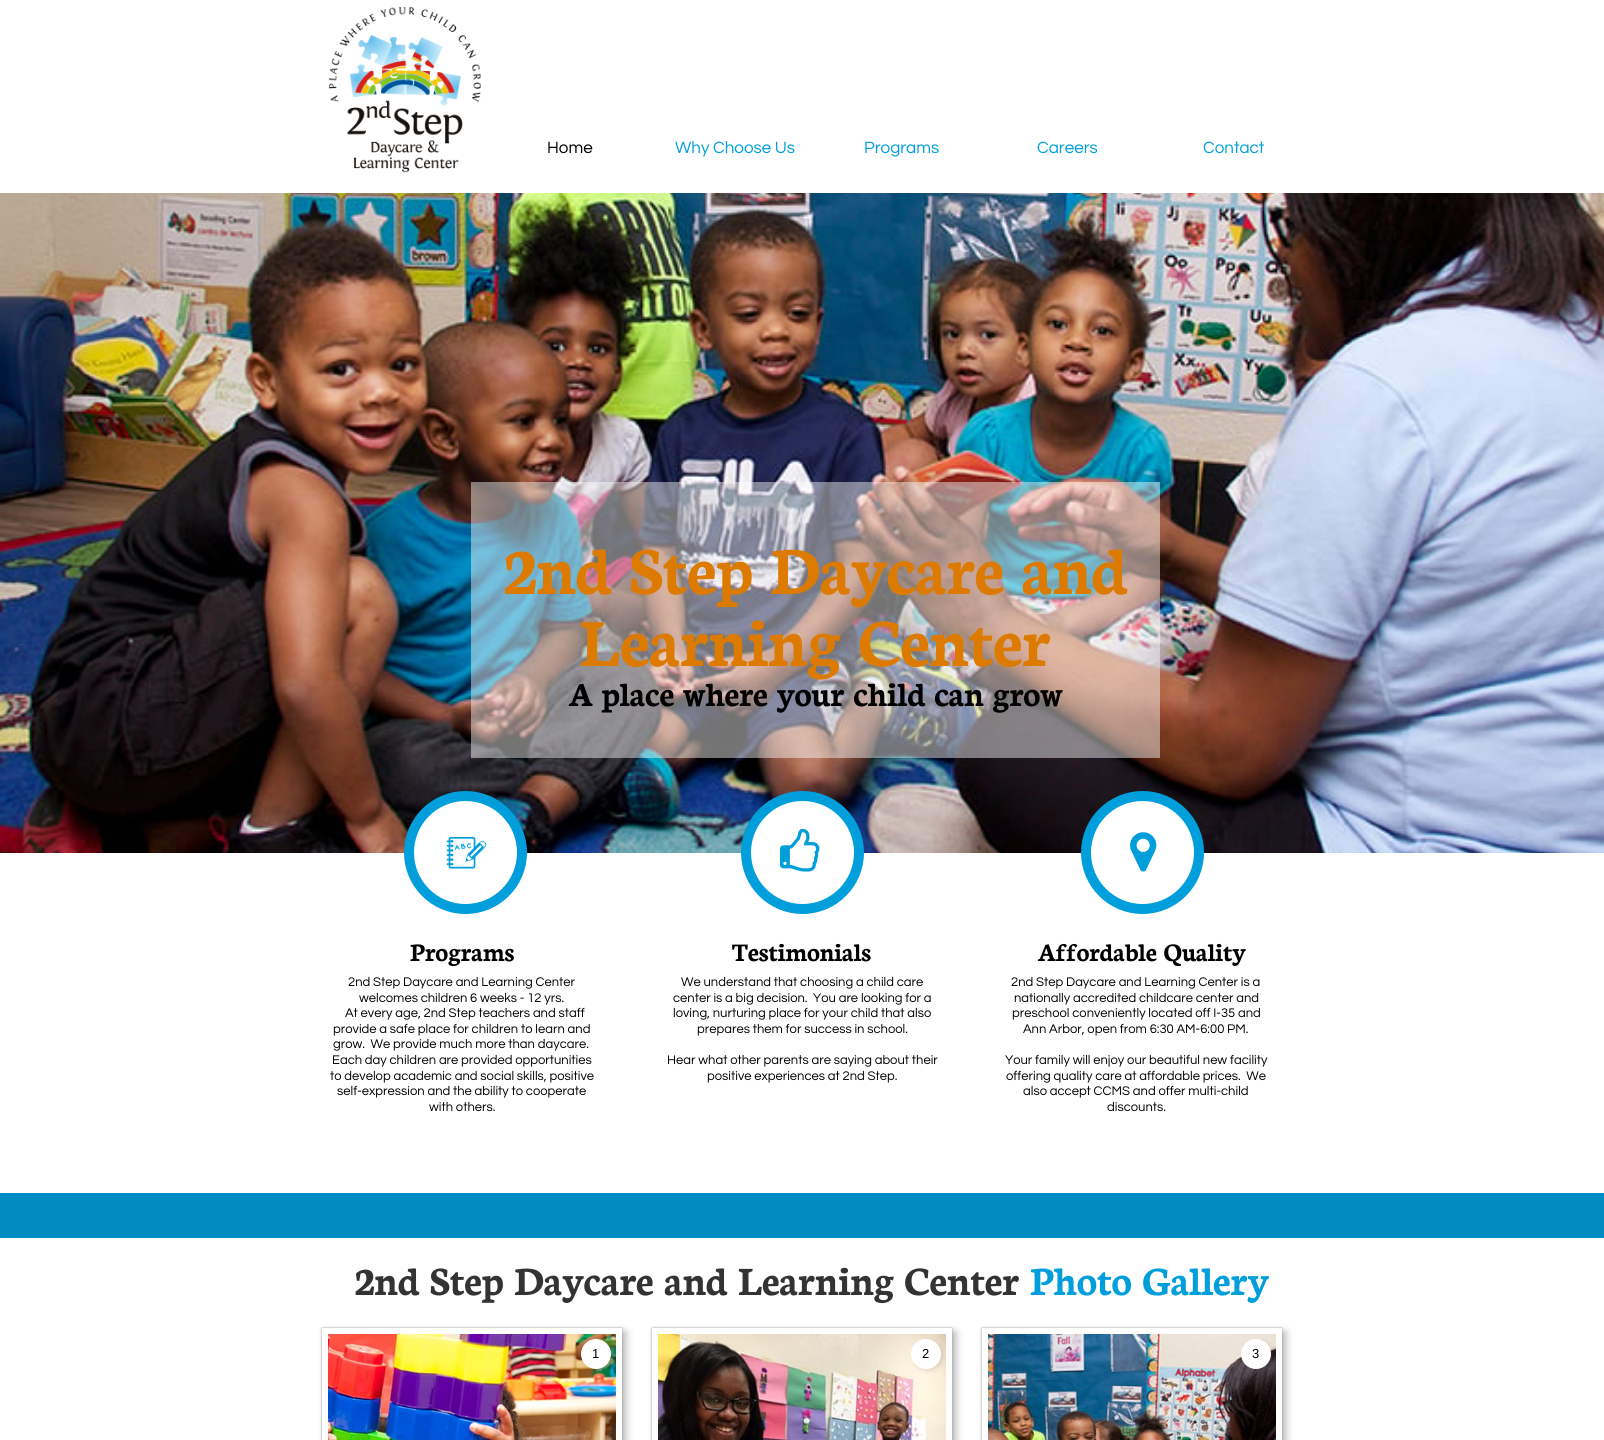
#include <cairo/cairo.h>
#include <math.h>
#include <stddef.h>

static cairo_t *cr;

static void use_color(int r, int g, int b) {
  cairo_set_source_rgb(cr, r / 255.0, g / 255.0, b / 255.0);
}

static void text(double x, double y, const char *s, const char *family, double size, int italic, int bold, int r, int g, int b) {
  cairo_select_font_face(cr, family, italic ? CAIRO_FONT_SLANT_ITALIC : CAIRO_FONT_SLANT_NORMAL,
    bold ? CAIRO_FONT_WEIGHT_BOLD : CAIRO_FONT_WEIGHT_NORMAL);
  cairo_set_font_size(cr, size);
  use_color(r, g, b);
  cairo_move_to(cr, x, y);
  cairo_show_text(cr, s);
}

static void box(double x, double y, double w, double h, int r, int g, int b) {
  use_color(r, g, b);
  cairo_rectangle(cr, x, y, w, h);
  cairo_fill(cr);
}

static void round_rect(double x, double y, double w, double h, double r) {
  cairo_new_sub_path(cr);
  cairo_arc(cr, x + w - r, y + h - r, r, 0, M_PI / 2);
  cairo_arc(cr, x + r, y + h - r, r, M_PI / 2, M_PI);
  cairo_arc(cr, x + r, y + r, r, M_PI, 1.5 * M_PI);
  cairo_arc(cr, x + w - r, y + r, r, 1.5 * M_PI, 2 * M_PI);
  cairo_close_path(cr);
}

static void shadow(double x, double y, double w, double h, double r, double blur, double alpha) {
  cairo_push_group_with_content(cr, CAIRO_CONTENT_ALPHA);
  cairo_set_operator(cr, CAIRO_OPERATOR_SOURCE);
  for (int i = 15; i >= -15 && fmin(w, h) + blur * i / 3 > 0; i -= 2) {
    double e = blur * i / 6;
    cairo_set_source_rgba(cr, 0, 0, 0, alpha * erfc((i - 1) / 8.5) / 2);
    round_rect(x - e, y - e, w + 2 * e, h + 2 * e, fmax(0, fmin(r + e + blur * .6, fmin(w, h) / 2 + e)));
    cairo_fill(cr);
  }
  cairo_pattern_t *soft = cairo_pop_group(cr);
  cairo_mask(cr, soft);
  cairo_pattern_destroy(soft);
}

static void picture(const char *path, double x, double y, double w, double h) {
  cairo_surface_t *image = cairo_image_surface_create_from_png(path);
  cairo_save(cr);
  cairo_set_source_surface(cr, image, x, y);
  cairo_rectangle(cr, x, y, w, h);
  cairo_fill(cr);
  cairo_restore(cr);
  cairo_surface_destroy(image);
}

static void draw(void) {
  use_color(255, 255, 255);
  cairo_paint(cr);
  picture("img_01.png", 328, 6, 153, 167);
  picture("img_02.png", 0, 193, 1604, 660);
  cairo_set_source_rgba(cr, 1, 1, 1, 0.45);
  cairo_rectangle(cr, 471, 482, 689, 276);
  cairo_fill(cr);
  use_color(255, 255, 255);
  cairo_arc(cr, 465.5, 852.5, 56.5, 0, 2 * M_PI);
  cairo_fill_preserve(cr);
  use_color(0, 159, 220);
  cairo_set_line_width(cr, 10);
  cairo_stroke(cr);
  picture("img_03.png", 446, 837, 41, 32);
  use_color(255, 255, 255);
  cairo_arc(cr, 802.5, 852.5, 56.5, 0, 2 * M_PI);
  cairo_fill_preserve(cr);
  use_color(0, 159, 220);
  cairo_stroke(cr);
  picture("img_04.png", 780, 828, 40, 44);
  use_color(255, 255, 255);
  cairo_arc(cr, 1142.5, 852.5, 56.5, 0, 2 * M_PI);
  cairo_fill_preserve(cr);
  use_color(0, 159, 220);
  cairo_stroke(cr);
  picture("img_05.png", 1130, 832, 27, 40);
  box(0, 1193, 1604, 45, 0, 140, 194);
  cairo_save(cr);
  cairo_set_fill_rule(cr, CAIRO_FILL_RULE_EVEN_ODD);
  cairo_new_path(cr);
  cairo_move_to(cr, 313, 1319);
  cairo_line_to(cr, 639, 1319);
  cairo_line_to(cr, 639, 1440);
  cairo_line_to(cr, 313, 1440);
  cairo_close_path(cr);
  cairo_move_to(cr, 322, 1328);
  cairo_line_to(cr, 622, 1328);
  cairo_line_to(cr, 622, 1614);
  cairo_line_to(cr, 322, 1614);
  cairo_close_path(cr);
  cairo_clip(cr);
  use_color(0, 0, 0);
  shadow(326, 1332, 300, 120, 0, 4, 0.28);
  cairo_restore(cr);
  cairo_save(cr);
  cairo_set_fill_rule(cr, CAIRO_FILL_RULE_EVEN_ODD);
  cairo_new_path(cr);
  cairo_move_to(cr, 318, 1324);
  cairo_line_to(cr, 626, 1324);
  cairo_line_to(cr, 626, 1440);
  cairo_line_to(cr, 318, 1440);
  cairo_close_path(cr);
  cairo_move_to(cr, 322, 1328);
  cairo_line_to(cr, 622, 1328);
  cairo_line_to(cr, 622, 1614);
  cairo_line_to(cr, 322, 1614);
  cairo_close_path(cr);
  cairo_clip(cr);
  use_color(153, 153, 153);
  shadow(322, 1328, 300, 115, 0, 1, 1);
  cairo_restore(cr);
  picture("img_06.png", 328, 1334, 288, 106);
  use_color(255, 255, 255);
  cairo_arc(cr, 596, 1354, 15, 0, 2 * M_PI);
  cairo_fill(cr);
  cairo_save(cr);
  cairo_set_fill_rule(cr, CAIRO_FILL_RULE_EVEN_ODD);
  cairo_new_path(cr);
  cairo_move_to(cr, 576, 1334);
  cairo_line_to(cr, 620, 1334);
  cairo_line_to(cr, 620, 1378);
  cairo_line_to(cr, 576, 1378);
  cairo_close_path(cr);
  cairo_move_to(cr, 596, 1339);
  cairo_curve_to(cr, 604.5, 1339, 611, 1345.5, 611, 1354);
  cairo_curve_to(cr, 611, 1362.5, 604.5, 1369, 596, 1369);
  cairo_curve_to(cr, 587.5, 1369, 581, 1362.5, 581, 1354);
  cairo_curve_to(cr, 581, 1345.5, 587.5, 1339, 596, 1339);
  cairo_close_path(cr);
  cairo_clip(cr);
  use_color(0, 0, 0);
  shadow(583, 1341, 30, 30, 15, 2, 0.1);
  cairo_restore(cr);
  cairo_save(cr);
  cairo_set_fill_rule(cr, CAIRO_FILL_RULE_EVEN_ODD);
  cairo_new_path(cr);
  cairo_move_to(cr, 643, 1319);
  cairo_line_to(cr, 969, 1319);
  cairo_line_to(cr, 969, 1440);
  cairo_line_to(cr, 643, 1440);
  cairo_close_path(cr);
  cairo_move_to(cr, 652, 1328);
  cairo_line_to(cr, 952, 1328);
  cairo_line_to(cr, 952, 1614);
  cairo_line_to(cr, 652, 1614);
  cairo_close_path(cr);
  cairo_clip(cr);
  use_color(0, 0, 0);
  shadow(656, 1332, 300, 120, 0, 4, 0.28);
  cairo_restore(cr);
  cairo_save(cr);
  cairo_set_fill_rule(cr, CAIRO_FILL_RULE_EVEN_ODD);
  cairo_new_path(cr);
  cairo_move_to(cr, 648, 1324);
  cairo_line_to(cr, 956, 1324);
  cairo_line_to(cr, 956, 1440);
  cairo_line_to(cr, 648, 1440);
  cairo_close_path(cr);
  cairo_move_to(cr, 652, 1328);
  cairo_line_to(cr, 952, 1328);
  cairo_line_to(cr, 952, 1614);
  cairo_line_to(cr, 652, 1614);
  cairo_close_path(cr);
  cairo_clip(cr);
  use_color(153, 153, 153);
  shadow(652, 1328, 300, 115, 0, 1, 1);
  cairo_restore(cr);
  picture("img_07.png", 658, 1334, 288, 106);
  cairo_arc(cr, 926, 1354, 15, 0, 2 * M_PI);
  cairo_fill(cr);
  cairo_save(cr);
  cairo_set_fill_rule(cr, CAIRO_FILL_RULE_EVEN_ODD);
  cairo_new_path(cr);
  cairo_move_to(cr, 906, 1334);
  cairo_line_to(cr, 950, 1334);
  cairo_line_to(cr, 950, 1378);
  cairo_line_to(cr, 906, 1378);
  cairo_close_path(cr);
  cairo_move_to(cr, 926, 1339);
  cairo_curve_to(cr, 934.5, 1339, 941, 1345.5, 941, 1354);
  cairo_curve_to(cr, 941, 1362.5, 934.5, 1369, 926, 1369);
  cairo_curve_to(cr, 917.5, 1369, 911, 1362.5, 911, 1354);
  cairo_curve_to(cr, 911, 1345.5, 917.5, 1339, 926, 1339);
  cairo_close_path(cr);
  cairo_clip(cr);
  use_color(0, 0, 0);
  shadow(913, 1341, 30, 30, 15, 2, 0.1);
  cairo_restore(cr);
  cairo_save(cr);
  cairo_set_fill_rule(cr, CAIRO_FILL_RULE_EVEN_ODD);
  cairo_new_path(cr);
  cairo_move_to(cr, 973, 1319);
  cairo_line_to(cr, 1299, 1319);
  cairo_line_to(cr, 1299, 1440);
  cairo_line_to(cr, 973, 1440);
  cairo_close_path(cr);
  cairo_move_to(cr, 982, 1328);
  cairo_line_to(cr, 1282, 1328);
  cairo_line_to(cr, 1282, 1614);
  cairo_line_to(cr, 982, 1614);
  cairo_close_path(cr);
  cairo_clip(cr);
  use_color(0, 0, 0);
  shadow(986, 1332, 300, 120, 0, 4, 0.28);
  cairo_restore(cr);
  cairo_save(cr);
  cairo_set_fill_rule(cr, CAIRO_FILL_RULE_EVEN_ODD);
  cairo_new_path(cr);
  cairo_move_to(cr, 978, 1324);
  cairo_line_to(cr, 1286, 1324);
  cairo_line_to(cr, 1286, 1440);
  cairo_line_to(cr, 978, 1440);
  cairo_close_path(cr);
  cairo_move_to(cr, 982, 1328);
  cairo_line_to(cr, 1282, 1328);
  cairo_line_to(cr, 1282, 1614);
  cairo_line_to(cr, 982, 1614);
  cairo_close_path(cr);
  cairo_clip(cr);
  use_color(153, 153, 153);
  shadow(982, 1328, 300, 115, 0, 1, 1);
  cairo_restore(cr);
  picture("img_08.png", 988, 1334, 288, 106);
  cairo_arc(cr, 1256, 1354, 15, 0, 2 * M_PI);
  cairo_fill(cr);
  cairo_save(cr);
  cairo_set_fill_rule(cr, CAIRO_FILL_RULE_EVEN_ODD);
  cairo_new_path(cr);
  cairo_move_to(cr, 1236, 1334);
  cairo_line_to(cr, 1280, 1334);
  cairo_line_to(cr, 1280, 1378);
  cairo_line_to(cr, 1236, 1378);
  cairo_close_path(cr);
  cairo_move_to(cr, 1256, 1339);
  cairo_curve_to(cr, 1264.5, 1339, 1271, 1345.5, 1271, 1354);
  cairo_curve_to(cr, 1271, 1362.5, 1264.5, 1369, 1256, 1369);
  cairo_curve_to(cr, 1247.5, 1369, 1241, 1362.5, 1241, 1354);
  cairo_curve_to(cr, 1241, 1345.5, 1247.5, 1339, 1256, 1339);
  cairo_close_path(cr);
  cairo_clip(cr);
  use_color(0, 0, 0);
  shadow(1243, 1341, 30, 30, 15, 2, 0.1);
  cairo_restore(cr);
  text(547, 153, "Home", "Questrial", 17, 0, 0, 0, 0, 0);
  text(675, 153, "Why Choose Us", "Questrial", 17, 0, 0, 0, 159, 220);
  text(864, 153, "Programs", "Questrial", 17, 0, 0, 0, 159, 220);
  text(1037, 153, "Careers", "Questrial", 17, 0, 0, 0, 159, 220);
  text(1203, 153, "Contact", "Questrial", 17, 0, 0, 0, 159, 220);
  text(504, 594, "2nd Step Daycare and", "Neuton", 72, 0, 1, 220, 123, 0);
  text(580, 666, "Learning Center", "Neuton", 72, 0, 1, 220, 123, 0);
  text(569, 706, "A place where your child can grow", "Neuton", 36, 0, 1, 0, 0, 0);
  text(410, 961, "Programs", "Neuton", 27, 0, 1, 0, 0, 0);
  text(732, 961, "Testimonials", "Neuton", 27, 0, 1, 0, 0, 0);
  text(1038, 961, "Affordable Quality", "Neuton", 27, 0, 1, 0, 0, 0);
  text(348, 986, "2nd Step Daycare and Learning Center", "Questrial", 13, 0, 0, 0, 0, 0);
  text(359, 1002, "welcomes children 6 weeks - 12 yrs.", "Questrial", 13, 0, 0, 0, 0, 0);
  text(345, 1017, "At every age, 2nd Step teachers and staff", "Questrial", 13, 0, 0, 0, 0, 0);
  text(333, 1033, "provide a safe place for children to learn and", "Questrial", 13, 0, 0, 0, 0, 0);
  text(333, 1048, "grow.  We provide much more than daycare.", "Questrial", 13, 0, 0, 0, 0, 0);
  text(332, 1064, "Each day children are provided opportunities", "Questrial", 13, 0, 0, 0, 0, 0);
  text(330, 1080, "to develop academic and social skills, positive", "Questrial", 13, 0, 0, 0, 0, 0);
  text(337, 1095, "self-expression and the ability to cooperate", "Questrial", 13, 0, 0, 0, 0, 0);
  text(429, 1111, "with others.", "Questrial", 13, 0, 0, 0, 0, 0);
  text(681, 986, "We understand that choosing a child care", "Questrial", 13, 0, 0, 0, 0, 0);
  text(673, 1002, "center is a big decision.  You are looking for a", "Questrial", 13, 0, 0, 0, 0, 0);
  text(673, 1017, "loving, nurturing place for your child that also", "Questrial", 13, 0, 0, 0, 0, 0);
  text(697, 1033, "prepares them for success in school.", "Questrial", 13, 0, 0, 0, 0, 0);
  text(667, 1064, "Hear what other parents are saying about their", "Questrial", 13, 0, 0, 0, 0, 0);
  text(707, 1080, "positive experiences at 2nd Step.", "Questrial", 13, 0, 0, 0, 0, 0);
  text(1011, 986, "2nd Step Daycare and Learning Center is a", "Questrial", 13, 0, 0, 0, 0, 0);
  text(1014, 1002, "nationally accredited childcare center and", "Questrial", 13, 0, 0, 0, 0, 0);
  text(1012, 1017, "preschool conveniently located off I-35 and", "Questrial", 13, 0, 0, 0, 0, 0);
  text(1023, 1033, "Ann Arbor, open from 6:30 AM-6:00 PM.", "Questrial", 13, 0, 0, 0, 0, 0);
  text(1005, 1064, "Your family will enjoy our beautiful new facility", "Questrial", 13, 0, 0, 0, 0, 0);
  text(1006, 1080, "offering quality care at affordable prices.  We", "Questrial", 13, 0, 0, 0, 0, 0);
  text(1023, 1095, "also accept CCMS and offer multi-child", "Questrial", 13, 0, 0, 0, 0, 0);
  text(1107, 1111, "discounts.", "Questrial", 13, 0, 0, 0, 0, 0);
  text(355, 1295, "2nd Step Daycare and Learning Center", "Neuton", 43, 0, 1, 51, 51, 51);
  text(1030, 1295, "Photo Gallery", "Neuton", 43, 0, 1, 0, 159, 220);
  text(592, 1358, "1", "Liberation Sans", 13, 0, 0, 0, 0, 0);
  text(922, 1358, "2", "Liberation Sans", 13, 0, 0, 0, 0, 0);
  text(1252, 1358, "3", "Liberation Sans", 13, 0, 0, 0, 0, 0);
}

int main(void) {
  cairo_surface_t *surface = cairo_image_surface_create(CAIRO_FORMAT_RGB24, 1604, 1440);
  cr = cairo_create(surface);
  cairo_font_options_t *options = cairo_font_options_create();
  cairo_font_options_set_hint_metrics(options, CAIRO_HINT_METRICS_OFF);
  cairo_font_options_set_hint_style(options, CAIRO_HINT_STYLE_NONE);
  cairo_set_font_options(cr, options);
  cairo_set_miter_limit(cr, 4);
  draw();
  cairo_surface_write_to_png(surface, "out.png");
  cairo_font_options_destroy(options);
  cairo_destroy(cr);
  cairo_surface_destroy(surface);
  return 0;
}
